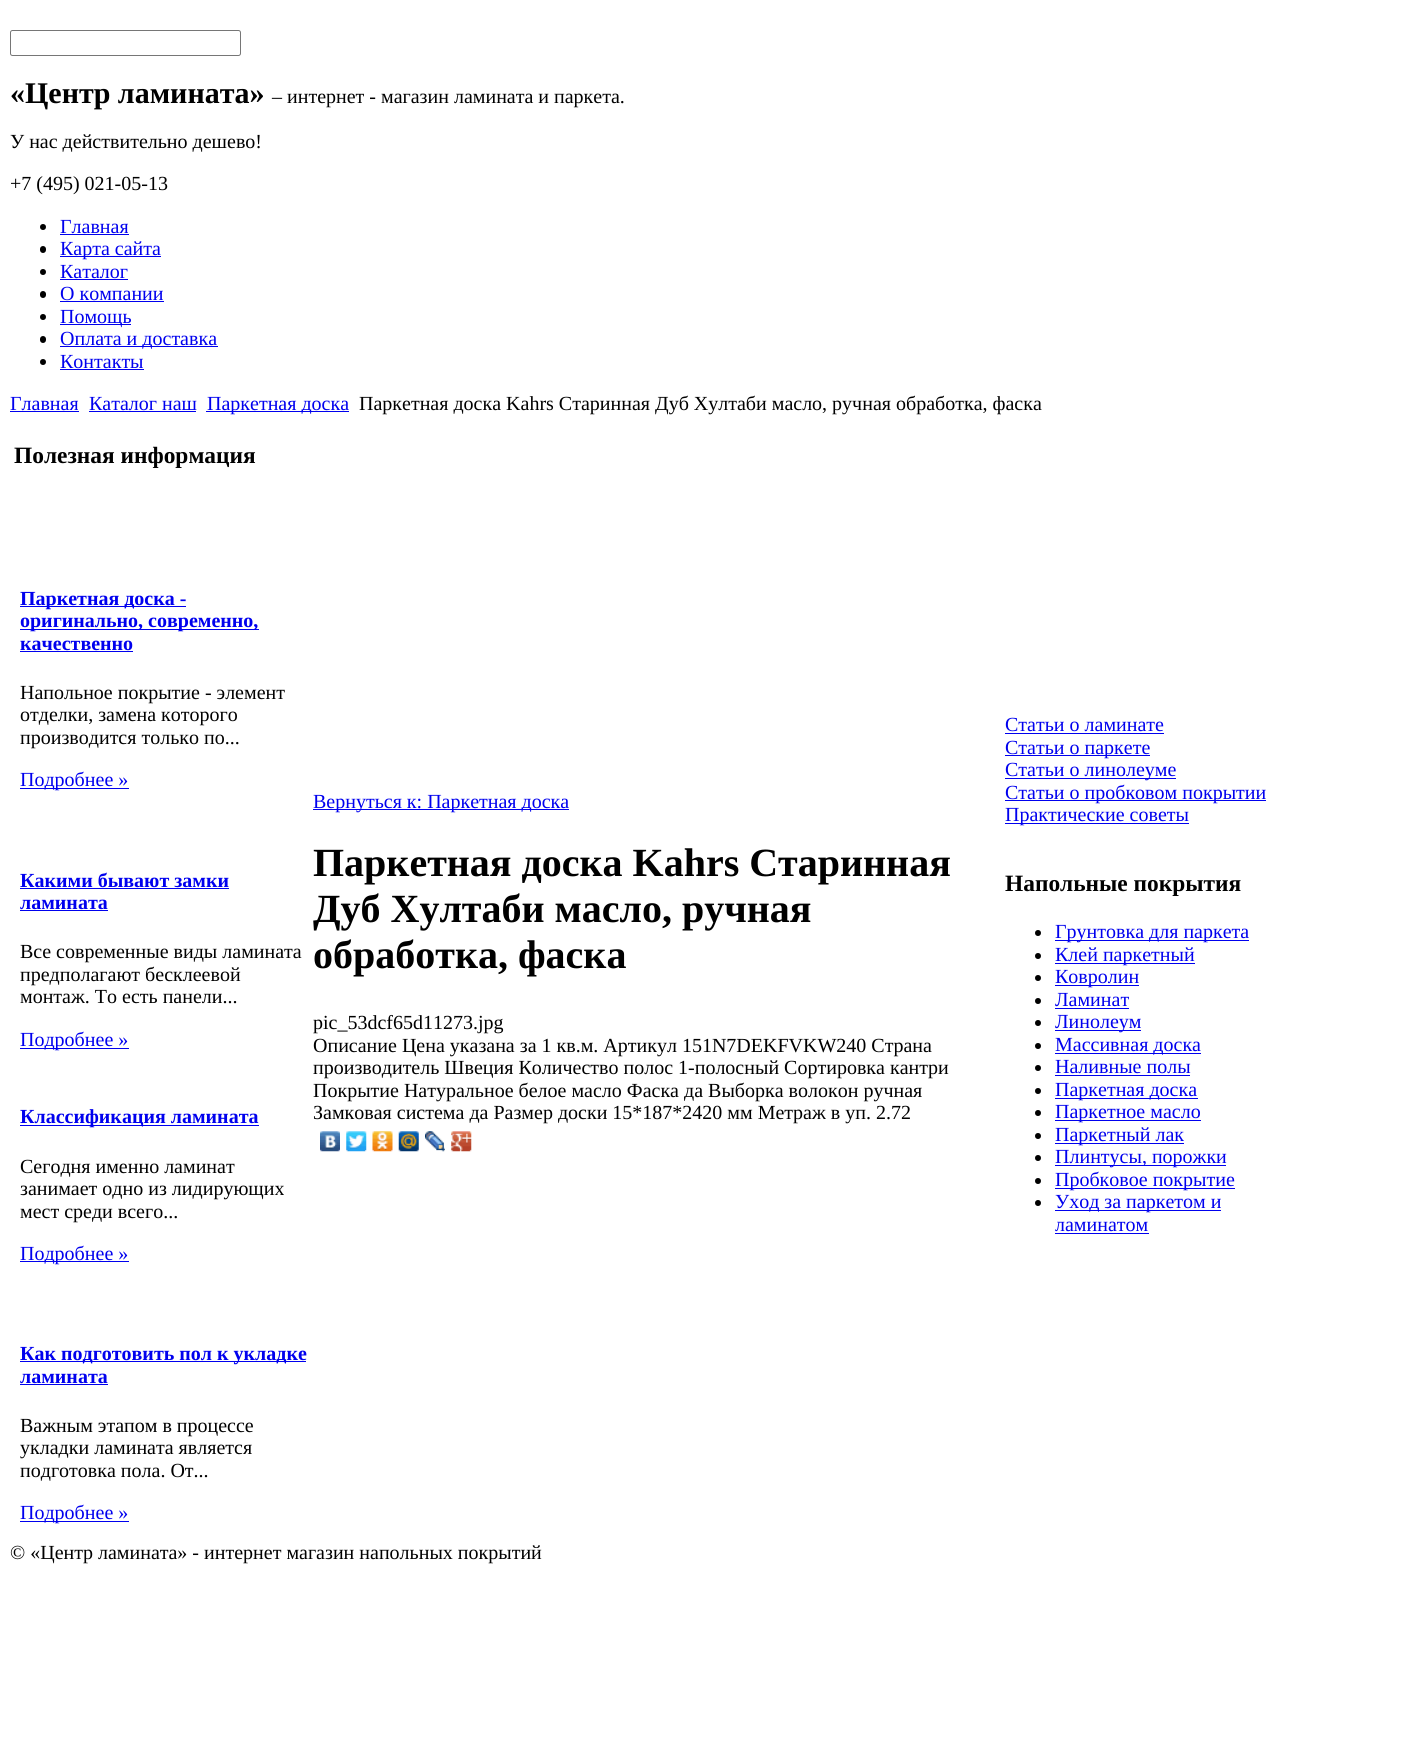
#include <cairo/cairo.h>
#include <math.h>
#include <stddef.h>

static cairo_t *cr;

static void use_color(int r, int g, int b) {
  cairo_set_source_rgb(cr, r / 255.0, g / 255.0, b / 255.0);
}

static void text(double x, double y, const char *s, const char *family, double size, int italic, int bold, int r, int g, int b) {
  cairo_select_font_face(cr, family, italic ? CAIRO_FONT_SLANT_ITALIC : CAIRO_FONT_SLANT_NORMAL,
    bold ? CAIRO_FONT_WEIGHT_BOLD : CAIRO_FONT_WEIGHT_NORMAL);
  cairo_set_font_size(cr, size);
  use_color(r, g, b);
  cairo_move_to(cr, x, y);
  cairo_show_text(cr, s);
}

static void box(double x, double y, double w, double h, int r, int g, int b) {
  use_color(r, g, b);
  cairo_rectangle(cr, x, y, w, h);
  cairo_fill(cr);
}

static void round_rect(double x, double y, double w, double h, double r) {
  cairo_new_sub_path(cr);
  cairo_arc(cr, x + w - r, y + h - r, r, 0, M_PI / 2);
  cairo_arc(cr, x + r, y + h - r, r, M_PI / 2, M_PI);
  cairo_arc(cr, x + r, y + r, r, M_PI, 1.5 * M_PI);
  cairo_arc(cr, x + w - r, y + r, r, 1.5 * M_PI, 2 * M_PI);
  cairo_close_path(cr);
}

static void picture(const char *path, double x, double y, double w, double h) {
  cairo_surface_t *image = cairo_image_surface_create_from_png(path);
  cairo_save(cr);
  cairo_set_source_surface(cr, image, x, y);
  cairo_rectangle(cr, x, y, w, h);
  cairo_fill(cr);
  cairo_restore(cr);
  cairo_surface_destroy(image);
}

static void draw(void) {
  use_color(255, 255, 255);
  cairo_paint(cr);
  round_rect(10.5, 30.5, 230, 25, 2);
  use_color(118, 118, 118);
  cairo_set_line_width(cr, 1);
  cairo_stroke(cr);
  use_color(0, 0, 0);
  cairo_arc(cr, 43, 227, 3, 0, 2 * M_PI);
  cairo_fill(cr);
  box(60, 234, 69, 1, 0, 0, 238);
  use_color(0, 0, 0);
  round_rect(40, 246, 6, 7, 3);
  cairo_fill(cr);
  box(60, 256, 101, 1, 0, 0, 238);
  use_color(0, 0, 0);
  cairo_arc(cr, 43, 272, 3, 0, 2 * M_PI);
  cairo_fill(cr);
  box(60, 279, 68, 1, 0, 0, 238);
  use_color(0, 0, 0);
  round_rect(40, 291, 6, 7, 3);
  cairo_fill(cr);
  box(60, 301, 104, 1, 0, 0, 238);
  use_color(0, 0, 0);
  cairo_arc(cr, 43, 317, 3, 0, 2 * M_PI);
  cairo_fill(cr);
  box(60, 324, 71, 1, 0, 0, 238);
  use_color(0, 0, 0);
  round_rect(40, 336, 6, 7, 3);
  cairo_fill(cr);
  box(60, 346, 158, 1, 0, 0, 238);
  use_color(0, 0, 0);
  cairo_arc(cr, 43, 362, 3, 0, 2 * M_PI);
  cairo_fill(cr);
  box(60, 369, 84, 1, 0, 0, 238);
  box(10, 411, 69, 1, 0, 0, 238);
  box(89, 411, 107, 1, 0, 0, 238);
  box(206, 411, 143, 1, 0, 0, 238);
  box(20, 606, 166, 1, 0, 0, 238);
  box(20, 629, 239, 1, 0, 0, 238);
  box(20, 651, 113, 1, 0, 0, 238);
  box(20, 788, 109, 1, 0, 0, 238);
  box(20, 888, 209, 1, 0, 0, 238);
  box(20, 910, 88, 1, 0, 0, 238);
  box(20, 1048, 109, 1, 0, 0, 238);
  box(20, 1125, 239, 1, 0, 0, 238);
  box(20, 1261, 109, 1, 0, 0, 238);
  box(20, 1361, 286, 1, 0, 0, 238);
  box(20, 1384, 88, 1, 0, 0, 238);
  box(20, 1521, 109, 1, 0, 0, 238);
  box(313, 809, 256, 1, 0, 0, 238);
  picture("img_01.png", 320, 1131, 20, 21);
  picture("img_02.png", 346, 1131, 21, 21);
  picture("img_03.png", 372, 1131, 21, 21);
  picture("img_04.png", 398, 1131, 21, 21);
  picture("img_05.png", 425, 1131, 20, 21);
  picture("img_06.png", 451, 1131, 21, 21);
  box(1005, 733, 159, 1, 0, 0, 238);
  box(1005, 755, 145, 1, 0, 0, 238);
  box(1005, 778, 171, 1, 0, 0, 238);
  box(1005, 800, 261, 1, 0, 0, 238);
  box(1005, 823, 184, 1, 0, 0, 238);
  use_color(0, 0, 0);
  cairo_arc(cr, 1038, 933, 3, 0, 2 * M_PI);
  cairo_fill(cr);
  box(1055, 940, 194, 1, 0, 0, 238);
  use_color(0, 0, 0);
  cairo_arc(cr, 1038, 956, 3, 0, 2 * M_PI);
  cairo_fill(cr);
  box(1055, 963, 140, 1, 0, 0, 238);
  use_color(0, 0, 0);
  cairo_arc(cr, 1038, 978, 3, 0, 2 * M_PI);
  cairo_fill(cr);
  box(1055, 985, 84, 1, 0, 0, 238);
  use_color(0, 0, 0);
  cairo_arc(cr, 1038, 1001, 3, 0, 2 * M_PI);
  cairo_fill(cr);
  box(1055, 1008, 74, 1, 0, 0, 238);
  use_color(0, 0, 0);
  cairo_arc(cr, 1038, 1023, 3, 0, 2 * M_PI);
  cairo_fill(cr);
  box(1055, 1030, 86, 1, 0, 0, 238);
  use_color(0, 0, 0);
  cairo_arc(cr, 1038, 1046, 3, 0, 2 * M_PI);
  cairo_fill(cr);
  box(1055, 1053, 146, 1, 0, 0, 238);
  use_color(0, 0, 0);
  cairo_arc(cr, 1038, 1068, 3, 0, 2 * M_PI);
  cairo_fill(cr);
  box(1055, 1075, 135, 1, 0, 0, 238);
  use_color(0, 0, 0);
  cairo_arc(cr, 1038, 1091, 3, 0, 2 * M_PI);
  cairo_fill(cr);
  box(1055, 1098, 143, 1, 0, 0, 238);
  use_color(0, 0, 0);
  cairo_arc(cr, 1038, 1113, 3, 0, 2 * M_PI);
  cairo_fill(cr);
  box(1055, 1120, 146, 1, 0, 0, 238);
  use_color(0, 0, 0);
  cairo_arc(cr, 1038, 1136, 3, 0, 2 * M_PI);
  cairo_fill(cr);
  box(1055, 1143, 129, 1, 0, 0, 238);
  use_color(0, 0, 0);
  cairo_arc(cr, 1038, 1158, 3, 0, 2 * M_PI);
  cairo_fill(cr);
  box(1055, 1165, 171, 1, 0, 0, 238);
  use_color(0, 0, 0);
  cairo_arc(cr, 1038, 1181, 3, 0, 2 * M_PI);
  cairo_fill(cr);
  box(1055, 1188, 180, 1, 0, 0, 238);
  use_color(0, 0, 0);
  cairo_arc(cr, 1038, 1203, 3, 0, 2 * M_PI);
  cairo_fill(cr);
  box(1055, 1210, 166, 1, 0, 0, 238);
  box(1055, 1233, 94, 1, 0, 0, 238);
  text(10, 103, "«Центр ламината»", "Liberation Serif", 30, 0, 1, 0, 0, 0);
  text(272, 103, "– интернет - магазин ламината и паркета.", "Liberation Serif", 20, 0, 0, 0, 0, 0);
  text(10, 148, "У нас действительно дешево!", "Liberation Serif", 20, 0, 0, 0, 0, 0);
  text(10, 190, "+7 (495) 021-05-13", "Liberation Serif", 20, 0, 0, 0, 0, 0);
  text(60, 233, "Главная", "Liberation Serif", 20, 0, 0, 0, 0, 238);
  text(60, 255, "Карта сайта", "Liberation Serif", 20, 0, 0, 0, 0, 238);
  text(60, 278, "Каталог", "Liberation Serif", 20, 0, 0, 0, 0, 238);
  text(60, 300, "О компании", "Liberation Serif", 20, 0, 0, 0, 0, 238);
  text(60, 323, "Помощь", "Liberation Serif", 20, 0, 0, 0, 0, 238);
  text(60, 345, "Оплата и доставка", "Liberation Serif", 20, 0, 0, 0, 0, 238);
  text(60, 368, "Контакты", "Liberation Serif", 20, 0, 0, 0, 0, 238);
  text(10, 410, "Главная", "Liberation Serif", 20, 0, 0, 0, 0, 238);
  text(89, 410, "Каталог наш", "Liberation Serif", 20, 0, 0, 0, 0, 238);
  text(207, 410, "Паркетная доска", "Liberation Serif", 20, 0, 0, 0, 0, 238);
  text(359, 410, "Паркетная доска Kahrs Старинная Дуб Хултаби масло, ручная обработка, фаска", "Liberation Serif", 20, 0, 0, 0, 0, 0);
  text(14, 463, "Полезная информация", "Liberation Serif", 23.4, 0, 1, 0, 0, 0);
  text(20, 605, "Паркетная доска -", "Liberation Serif", 20, 0, 1, 0, 0, 238);
  text(20, 627, "оригинально, современно,", "Liberation Serif", 20, 0, 1, 0, 0, 238);
  text(20, 650, "качественно", "Liberation Serif", 20, 0, 1, 0, 0, 238);
  text(20, 699, "Напольное покрытие - элемент", "Liberation Serif", 20, 0, 0, 0, 0, 0);
  text(20, 721, "отделки, замена которого", "Liberation Serif", 20, 0, 0, 0, 0, 0);
  text(20, 744, "производится только по...", "Liberation Serif", 20, 0, 0, 0, 0, 0);
  text(20, 786, "Подробнее »", "Liberation Serif", 20, 0, 0, 0, 0, 238);
  text(20, 887, "Какими бывают замки", "Liberation Serif", 20, 0, 1, 0, 0, 238);
  text(20, 909, "ламината", "Liberation Serif", 20, 0, 1, 0, 0, 238);
  text(20, 958, "Все современные виды ламината", "Liberation Serif", 20, 0, 0, 0, 0, 0);
  text(20, 981, "предполагают бесклеевой", "Liberation Serif", 20, 0, 0, 0, 0, 0);
  text(20, 1003, "монтаж. То есть панели...", "Liberation Serif", 20, 0, 0, 0, 0, 0);
  text(20, 1046, "Подробнее »", "Liberation Serif", 20, 0, 0, 0, 0, 238);
  text(20, 1123, "Классификация ламината", "Liberation Serif", 20, 0, 1, 0, 0, 238);
  text(20, 1173, "Сегодня именно ламинат", "Liberation Serif", 20, 0, 0, 0, 0, 0);
  text(20, 1195, "занимает одно из лидирующих", "Liberation Serif", 20, 0, 0, 0, 0, 0);
  text(20, 1218, "мест среди всего...", "Liberation Serif", 20, 0, 0, 0, 0, 0);
  text(20, 1260, "Подробнее »", "Liberation Serif", 20, 0, 0, 0, 0, 238);
  text(20, 1360, "Как подготовить пол к укладке", "Liberation Serif", 20, 0, 1, 0, 0, 238);
  text(20, 1383, "ламината", "Liberation Serif", 20, 0, 1, 0, 0, 238);
  text(20, 1432, "Важным этапом в процессе", "Liberation Serif", 20, 0, 0, 0, 0, 0);
  text(20, 1454, "укладки ламината является", "Liberation Serif", 20, 0, 0, 0, 0, 0);
  text(20, 1477, "подготовка пола. От...", "Liberation Serif", 20, 0, 0, 0, 0, 0);
  text(20, 1519, "Подробнее »", "Liberation Serif", 20, 0, 0, 0, 0, 238);
  text(313, 808, "Вернуться к: Паркетная доска", "Liberation Serif", 20, 0, 0, 0, 0, 238);
  text(313, 876, "Паркетная доска Kahrs Старинная", "Liberation Serif", 40, 0, 1, 0, 0, 0);
  text(313, 922, "Дуб Хултаби масло, ручная", "Liberation Serif", 40, 0, 1, 0, 0, 0);
  text(313, 968, "обработка, фаска", "Liberation Serif", 40, 0, 1, 0, 0, 0);
  text(313, 1029, "pic_53dcf65d11273.jpg", "Liberation Serif", 20, 0, 0, 0, 0, 0);
  text(313, 1052, "Описание Цена указана за 1 кв.м. Артикул 151N7DEKFVKW240 Страна", "Liberation Serif", 20, 0, 0, 0, 0, 0);
  text(313, 1074, "производитель Швеция Количество полос 1-полосный Сортировка кантри", "Liberation Serif", 20, 0, 0, 0, 0, 0);
  text(313, 1097, "Покрытие Натуральное белое масло Фаска да Выборка волокон ручная", "Liberation Serif", 20, 0, 0, 0, 0, 0);
  text(313, 1119, "Замковая система да Размер доски 15*187*2420 мм Метраж в уп. 2.72", "Liberation Serif", 20, 0, 0, 0, 0, 0);
  text(1005, 731, "Статьи о ламинате", "Liberation Serif", 20, 0, 0, 0, 0, 238);
  text(1005, 754, "Статьи о паркете", "Liberation Serif", 20, 0, 0, 0, 0, 238);
  text(1005, 776, "Статьи о линолеуме", "Liberation Serif", 20, 0, 0, 0, 0, 238);
  text(1005, 799, "Статьи о пробковом покрытии", "Liberation Serif", 20, 0, 0, 0, 0, 238);
  text(1005, 821, "Практические советы", "Liberation Serif", 20, 0, 0, 0, 0, 238);
  text(1005, 891, "Напольные покрытия", "Liberation Serif", 23.4, 0, 1, 0, 0, 0);
  text(1055, 938, "Грунтовка для паркета", "Liberation Serif", 20, 0, 0, 0, 0, 238);
  text(1055, 961, "Клей паркетный", "Liberation Serif", 20, 0, 0, 0, 0, 238);
  text(1055, 983, "Ковролин", "Liberation Serif", 20, 0, 0, 0, 0, 238);
  text(1055, 1006, "Ламинат", "Liberation Serif", 20, 0, 0, 0, 0, 238);
  text(1055, 1028, "Линолеум", "Liberation Serif", 20, 0, 0, 0, 0, 238);
  text(1055, 1051, "Массивная доска", "Liberation Serif", 20, 0, 0, 0, 0, 238);
  text(1055, 1073, "Наливные полы", "Liberation Serif", 20, 0, 0, 0, 0, 238);
  text(1055, 1096, "Паркетная доска", "Liberation Serif", 20, 0, 0, 0, 0, 238);
  text(1055, 1118, "Паркетное масло", "Liberation Serif", 20, 0, 0, 0, 0, 238);
  text(1055, 1141, "Паркетный лак", "Liberation Serif", 20, 0, 0, 0, 0, 238);
  text(1055, 1163, "Плинтусы, порожки", "Liberation Serif", 20, 0, 0, 0, 0, 238);
  text(1055, 1186, "Пробковое покрытие", "Liberation Serif", 20, 0, 0, 0, 0, 238);
  text(1055, 1208, "Уход за паркетом и", "Liberation Serif", 20, 0, 0, 0, 0, 238);
  text(1055, 1231, "ламинатом", "Liberation Serif", 20, 0, 0, 0, 0, 238);
  text(10, 1559, "© «Центр ламината» - интернет магазин напольных покрытий", "Liberation Serif", 20, 0, 0, 0, 0, 0);
}

int main(void) {
  cairo_surface_t *surface = cairo_image_surface_create(CAIRO_FORMAT_RGB24, 1423, 1755);
  cr = cairo_create(surface);
  cairo_font_options_t *options = cairo_font_options_create();
  cairo_font_options_set_hint_metrics(options, CAIRO_HINT_METRICS_OFF);
  cairo_font_options_set_hint_style(options, CAIRO_HINT_STYLE_NONE);
  cairo_set_font_options(cr, options);
  cairo_set_miter_limit(cr, 4);
  draw();
  cairo_surface_write_to_png(surface, "out.png");
  cairo_font_options_destroy(options);
  cairo_destroy(cr);
  cairo_surface_destroy(surface);
  return 0;
}
